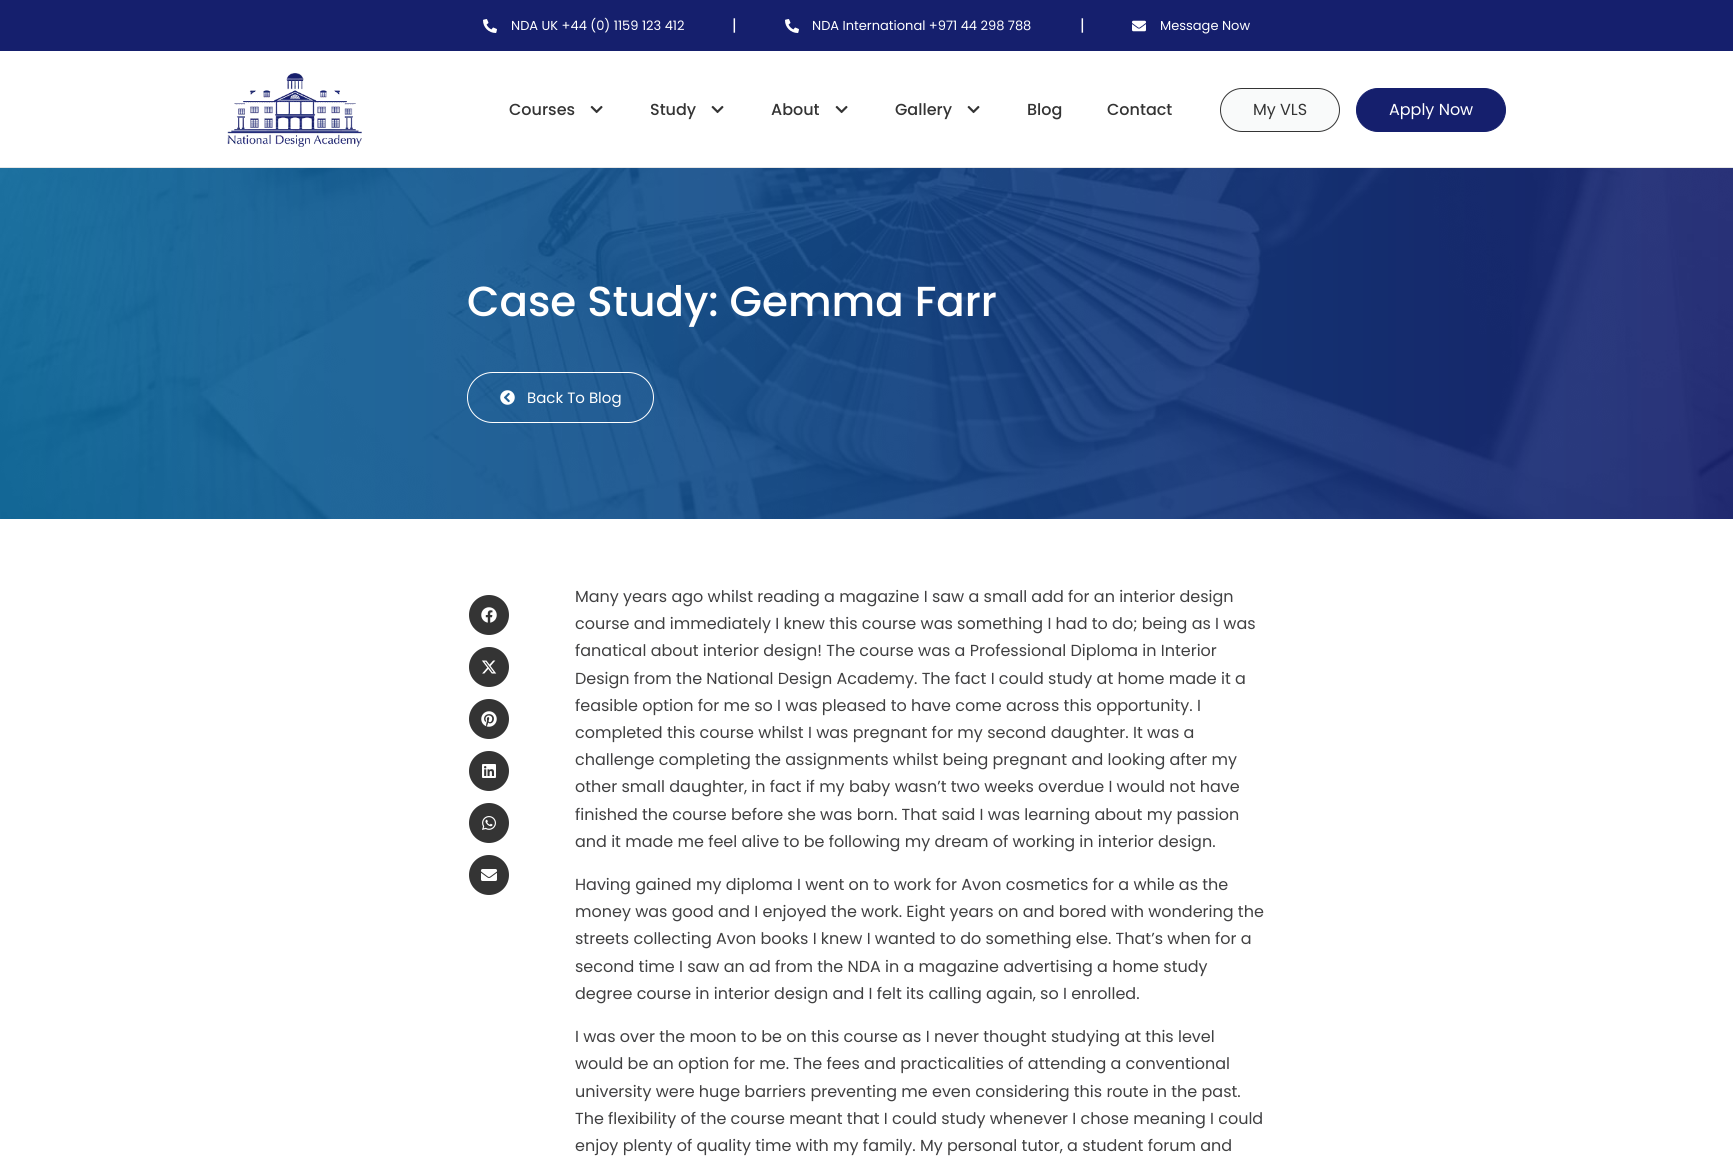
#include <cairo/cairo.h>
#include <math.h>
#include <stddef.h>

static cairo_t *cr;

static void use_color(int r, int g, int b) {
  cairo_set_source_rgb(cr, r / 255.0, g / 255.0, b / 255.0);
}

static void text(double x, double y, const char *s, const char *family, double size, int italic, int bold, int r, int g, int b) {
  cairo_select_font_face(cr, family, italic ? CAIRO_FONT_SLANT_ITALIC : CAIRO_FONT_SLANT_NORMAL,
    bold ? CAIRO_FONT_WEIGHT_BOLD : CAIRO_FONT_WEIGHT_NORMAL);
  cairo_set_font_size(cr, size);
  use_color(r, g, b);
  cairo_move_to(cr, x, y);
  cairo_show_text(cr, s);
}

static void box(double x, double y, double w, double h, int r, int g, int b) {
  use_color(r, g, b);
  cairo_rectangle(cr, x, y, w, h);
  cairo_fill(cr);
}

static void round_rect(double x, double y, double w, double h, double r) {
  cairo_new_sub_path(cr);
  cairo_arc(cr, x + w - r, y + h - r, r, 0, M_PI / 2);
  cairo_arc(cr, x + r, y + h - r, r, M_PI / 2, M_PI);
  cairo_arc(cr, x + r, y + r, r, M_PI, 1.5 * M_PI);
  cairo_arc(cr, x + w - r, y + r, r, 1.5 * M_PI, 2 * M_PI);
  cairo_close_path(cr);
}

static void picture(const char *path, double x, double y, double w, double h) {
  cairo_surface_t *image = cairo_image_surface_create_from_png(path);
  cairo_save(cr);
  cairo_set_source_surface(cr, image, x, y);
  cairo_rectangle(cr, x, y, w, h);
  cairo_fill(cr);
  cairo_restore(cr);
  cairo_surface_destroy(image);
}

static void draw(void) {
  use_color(255, 255, 255);
  cairo_paint(cr);
  box(0, 0, 1733, 51, 21, 31, 109);
  picture("img_01.png", 483, 19, 14, 14);
  picture("img_01.png", 785, 19, 14, 14);
  picture("img_02.png", 1132, 20, 14, 12);
  box(0, 167, 1733, 1, 230, 230, 230);
  picture("img_03.png", 227, 73, 135, 74);
  picture("img_04.png", 590, 105, 13, 9);
  picture("img_05.png", 711, 105, 13, 9);
  picture("img_06.png", 835, 105, 13, 9);
  picture("img_07.png", 967, 105, 13, 9);
  use_color(249, 250, 250);
  round_rect(1220.5, 88.5, 119, 43, 21.5);
  cairo_fill_preserve(cr);
  use_color(52, 52, 52);
  cairo_set_line_width(cr, 1);
  cairo_stroke(cr);
  use_color(21, 31, 109);
  round_rect(1356.5, 88.5, 149, 43, 21.5);
  cairo_fill_preserve(cr);
  cairo_stroke(cr);
  picture("img_08.png", 0, 168, 1733, 351);
  round_rect(467.5, 372.5, 186, 50, 25);
  use_color(255, 255, 255);
  cairo_stroke(cr);
  picture("img_09.png", 500, 390, 15, 15);
  use_color(52, 52, 52);
  cairo_arc(cr, 489, 615, 20, 0, 2 * M_PI);
  cairo_fill(cr);
  picture("img_10.png", 481, 607, 16, 16);
  cairo_arc(cr, 489, 667, 20, 0, 2 * M_PI);
  cairo_fill(cr);
  picture("img_11.png", 482, 660, 15, 14);
  cairo_arc(cr, 489, 719, 20, 0, 2 * M_PI);
  cairo_fill(cr);
  picture("img_12.png", 481, 711, 16, 16);
  cairo_arc(cr, 489, 771, 20, 0, 2 * M_PI);
  cairo_fill(cr);
  picture("img_13.png", 482, 764, 14, 14);
  cairo_arc(cr, 489, 823, 20, 0, 2 * M_PI);
  cairo_fill(cr);
  picture("img_14.png", 482, 816, 14, 14);
  cairo_arc(cr, 489, 875, 20, 0, 2 * M_PI);
  cairo_fill(cr);
  picture("img_15.png", 481, 869, 16, 12);
  text(511, 30, "NDA UK +44 (0) 1159 123 412", "Poppins", 13, 0, 0, 255, 255, 255);
  text(732, 31, "|", "Poppins", 16, 0, 0, 255, 255, 255);
  text(812, 30, "NDA International +971 44 298 788", "Poppins", 13, 0, 0, 255, 255, 255);
  text(1080, 31, "|", "Poppins", 16, 0, 0, 255, 255, 255);
  text(1160, 30, "Message Now", "Poppins", 13, 0, 0, 255, 255, 255);
  text(509, 115, "Courses", "Poppins Medium", 16, 0, 0, 52, 52, 52);
  text(650, 115, "Study", "Poppins Medium", 16, 0, 0, 52, 52, 52);
  text(771, 115, "About", "Poppins Medium", 16, 0, 0, 52, 52, 52);
  text(895, 115, "Gallery", "Poppins Medium", 16, 0, 0, 52, 52, 52);
  text(1027, 115, "Blog", "Poppins Medium", 16, 0, 0, 52, 52, 52);
  text(1107, 115, "Contact", "Poppins Medium", 16, 0, 0, 52, 52, 52);
  text(1253, 115, "My VLS", "Poppins", 16, 0, 0, 52, 52, 52);
  text(1389, 115, "Apply Now", "Poppins", 16, 0, 0, 255, 255, 255);
  text(467, 316, "Case Study: Gemma Farr", "Poppins Medium", 42, 0, 0, 255, 255, 255);
  text(527, 403, "Back To Blog", "Poppins", 15, 0, 0, 255, 255, 255);
  text(575, 602, "Many years ago whilst reading a magazine I saw a small add for an interior design", "Poppins", 16, 0, 0, 64, 64, 65);
  text(575, 629, "course and immediately I knew this course was something I had to do; being as I was", "Poppins", 16, 0, 0, 64, 64, 65);
  text(575, 656, "fanatical about interior design! The course was a Professional Diploma in Interior", "Poppins", 16, 0, 0, 64, 64, 65);
  text(575, 684, "Design from the National Design Academy. The fact I could study at home made it a", "Poppins", 16, 0, 0, 64, 64, 65);
  text(575, 711, "feasible option for me so I was pleased to have come across this opportunity. I", "Poppins", 16, 0, 0, 64, 64, 65);
  text(575, 738, "completed this course whilst I was pregnant for my second daughter. It was a", "Poppins", 16, 0, 0, 64, 64, 65);
  text(575, 765, "challenge completing the assignments whilst being pregnant and looking after my", "Poppins", 16, 0, 0, 64, 64, 65);
  text(575, 792, "other small daughter, in fact if my baby wasn’t two weeks overdue I would not have", "Poppins", 16, 0, 0, 64, 64, 65);
  text(575, 820, "finished the course before she was born. That said I was learning about my passion", "Poppins", 16, 0, 0, 64, 64, 65);
  text(575, 847, "and it made me feel alive to be following my dream of working in interior design.", "Poppins", 16, 0, 0, 64, 64, 65);
  text(575, 890, "Having gained my diploma I went on to work for Avon cosmetics for a while as the", "Poppins", 16, 0, 0, 64, 64, 65);
  text(575, 917, "money was good and I enjoyed the work. Eight years on and bored with wondering the", "Poppins", 16, 0, 0, 64, 64, 65);
  text(575, 944, "streets collecting Avon books I knew I wanted to do something else. That’s when for a", "Poppins", 16, 0, 0, 64, 64, 65);
  text(575, 972, "second time I saw an ad from the NDA in a magazine advertising a home study", "Poppins", 16, 0, 0, 64, 64, 65);
  text(575, 999, "degree course in interior design and I felt its calling again, so I enrolled.", "Poppins", 16, 0, 0, 64, 64, 65);
  text(575, 1042, "I was over the moon to be on this course as I never thought studying at this level", "Poppins", 16, 0, 0, 64, 64, 65);
  text(575, 1069, "would be an option for me. The fees and practicalities of attending a conventional", "Poppins", 16, 0, 0, 64, 64, 65);
  text(575, 1097, "university were huge barriers preventing me even considering this route in the past.", "Poppins", 16, 0, 0, 64, 64, 65);
  text(575, 1124, "The flexibility of the course meant that I could study whenever I chose meaning I could", "Poppins", 16, 0, 0, 64, 64, 65);
  text(575, 1151, "enjoy plenty of quality time with my family. My personal tutor, a student forum and", "Poppins", 16, 0, 0, 64, 64, 65);
}

int main(void) {
  cairo_surface_t *surface = cairo_image_surface_create(CAIRO_FORMAT_RGB24, 1733, 1174);
  cr = cairo_create(surface);
  cairo_font_options_t *options = cairo_font_options_create();
  cairo_font_options_set_hint_metrics(options, CAIRO_HINT_METRICS_OFF);
  cairo_font_options_set_hint_style(options, CAIRO_HINT_STYLE_NONE);
  cairo_set_font_options(cr, options);
  cairo_set_miter_limit(cr, 4);
  draw();
  cairo_surface_write_to_png(surface, "out.png");
  cairo_font_options_destroy(options);
  cairo_destroy(cr);
  cairo_surface_destroy(surface);
  return 0;
}
